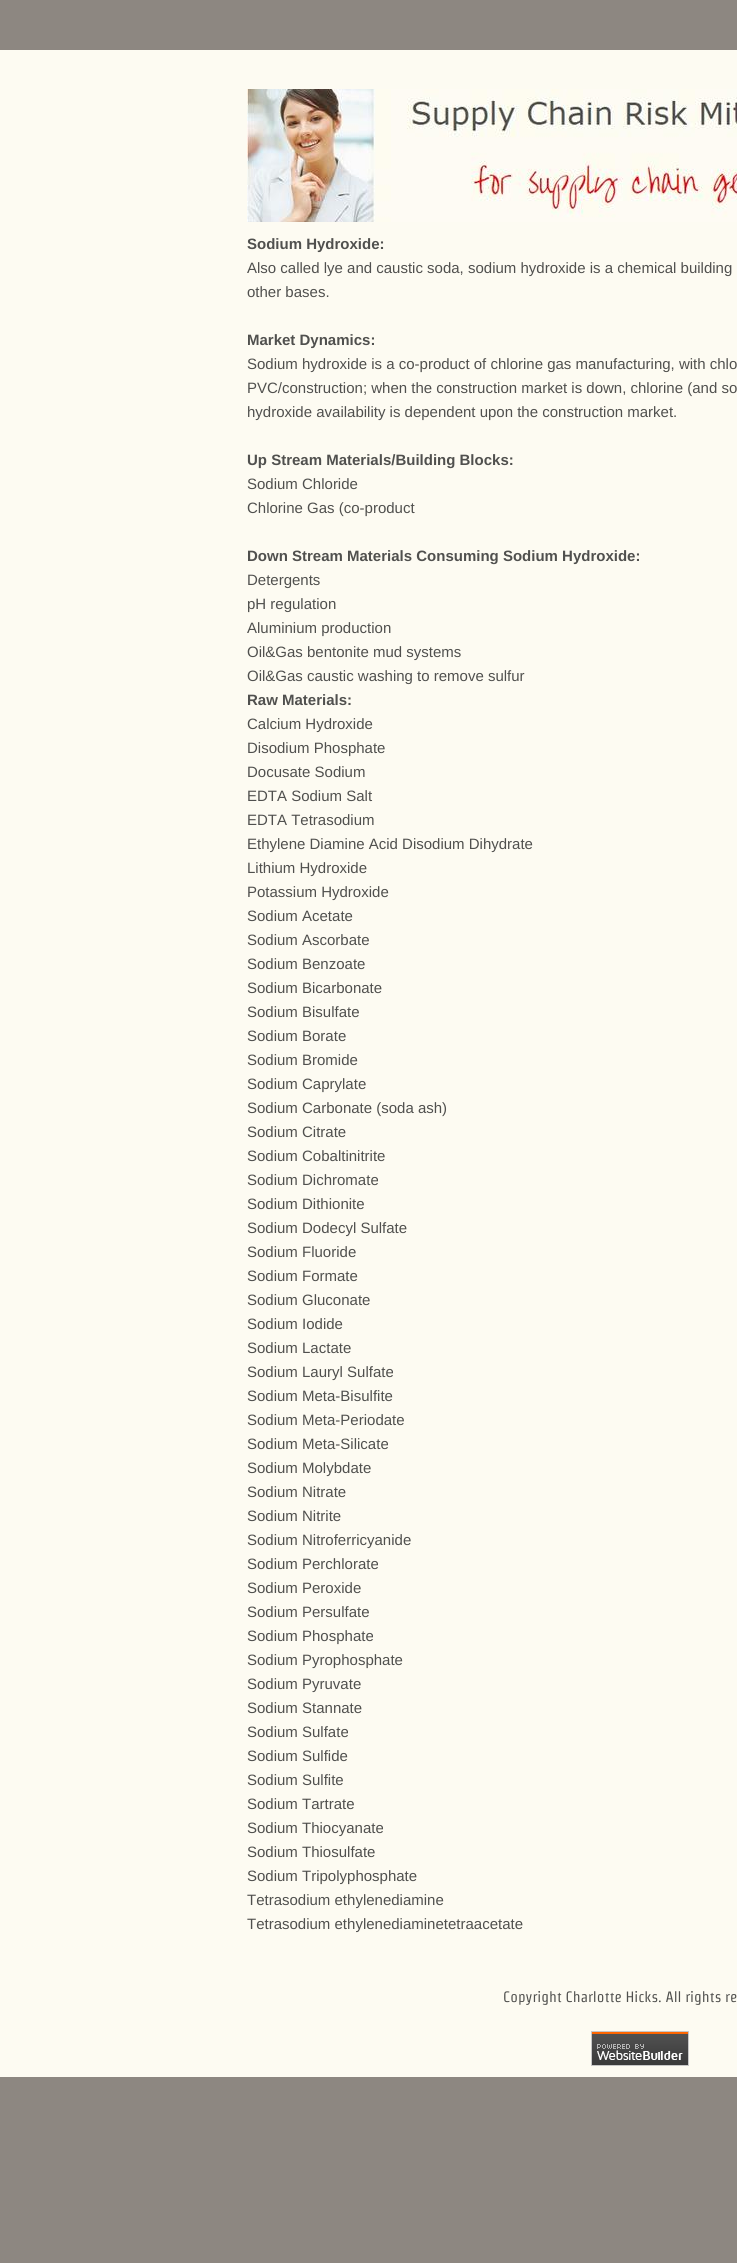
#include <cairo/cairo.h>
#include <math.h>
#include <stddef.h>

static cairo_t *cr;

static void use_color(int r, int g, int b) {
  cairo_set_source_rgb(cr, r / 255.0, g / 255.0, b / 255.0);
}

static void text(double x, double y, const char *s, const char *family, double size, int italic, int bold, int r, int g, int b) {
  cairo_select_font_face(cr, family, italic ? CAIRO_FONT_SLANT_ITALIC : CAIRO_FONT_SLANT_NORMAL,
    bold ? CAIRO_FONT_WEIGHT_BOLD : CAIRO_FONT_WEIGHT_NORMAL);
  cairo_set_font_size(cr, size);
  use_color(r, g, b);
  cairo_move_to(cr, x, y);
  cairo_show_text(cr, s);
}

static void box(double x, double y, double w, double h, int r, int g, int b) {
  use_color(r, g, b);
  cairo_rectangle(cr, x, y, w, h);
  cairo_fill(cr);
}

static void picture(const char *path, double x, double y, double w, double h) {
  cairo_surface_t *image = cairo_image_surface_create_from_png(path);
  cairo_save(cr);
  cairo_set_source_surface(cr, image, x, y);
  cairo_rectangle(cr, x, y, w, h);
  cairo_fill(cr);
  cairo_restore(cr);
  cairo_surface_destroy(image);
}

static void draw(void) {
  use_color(141, 135, 129);
  cairo_paint(cr);
  box(0, 50, 737, 2027, 253, 251, 242);
  picture("img_01.png", 247, 89, 490, 133);
  picture("img_02.png", 591, 2031, 98, 35);
  text(247, 249, "Sodium Hydroxide:", "Liberation Sans", 15, 0, 1, 80, 80, 78);
  text(247, 273, "Also called lye and caustic soda, sodium hydroxide is a chemical building", "Liberation Sans", 15, 0, 0, 80, 80, 78);
  text(247, 297, "other bases.", "Liberation Sans", 15, 0, 0, 80, 80, 78);
  text(247, 345, "Market Dynamics:", "Liberation Sans", 15, 0, 1, 80, 80, 78);
  text(247, 369, "Sodium hydroxide is a co-product of chlorine gas manufacturing, with chlo", "Liberation Sans", 15, 0, 0, 80, 80, 78);
  text(247, 393, "PVC/construction; when the construction market is down, chlorine (and so", "Liberation Sans", 15, 0, 0, 80, 80, 78);
  text(247, 417, "hydroxide availability is dependent upon the construction market.", "Liberation Sans", 15, 0, 0, 80, 80, 78);
  text(247, 465, "Up Stream Materials/Building Blocks:", "Liberation Sans", 15, 0, 1, 80, 80, 78);
  text(247, 489, "Sodium Chloride", "Liberation Sans", 15, 0, 0, 80, 80, 78);
  text(247, 513, "Chlorine Gas (co-product", "Liberation Sans", 15, 0, 0, 80, 80, 78);
  text(247, 561, "Down Stream Materials Consuming Sodium Hydroxide:", "Liberation Sans", 15, 0, 1, 80, 80, 78);
  text(247, 585, "Detergents", "Liberation Sans", 15, 0, 0, 80, 80, 78);
  text(247, 609, "pH regulation", "Liberation Sans", 15, 0, 0, 80, 80, 78);
  text(247, 633, "Aluminium production", "Liberation Sans", 15, 0, 0, 80, 80, 78);
  text(247, 657, "Oil&Gas bentonite mud systems", "Liberation Sans", 15, 0, 0, 80, 80, 78);
  text(247, 681, "Oil&Gas caustic washing to remove sulfur", "Liberation Sans", 15, 0, 0, 80, 80, 78);
  text(247, 705, "Raw Materials:", "Liberation Sans", 15, 0, 1, 80, 80, 78);
  text(247, 729, "Calcium Hydroxide", "Liberation Sans", 15, 0, 0, 80, 80, 78);
  text(247, 753, "Disodium Phosphate", "Liberation Sans", 15, 0, 0, 80, 80, 78);
  text(247, 777, "Docusate Sodium", "Liberation Sans", 15, 0, 0, 80, 80, 78);
  text(247, 801, "EDTA Sodium Salt", "Liberation Sans", 15, 0, 0, 80, 80, 78);
  text(247, 825, "EDTA Tetrasodium", "Liberation Sans", 15, 0, 0, 80, 80, 78);
  text(247, 849, "Ethylene Diamine Acid Disodium Dihydrate", "Liberation Sans", 15, 0, 0, 80, 80, 78);
  text(247, 873, "Lithium Hydroxide", "Liberation Sans", 15, 0, 0, 80, 80, 78);
  text(247, 897, "Potassium Hydroxide", "Liberation Sans", 15, 0, 0, 80, 80, 78);
  text(247, 921, "Sodium Acetate", "Liberation Sans", 15, 0, 0, 80, 80, 78);
  text(247, 945, "Sodium Ascorbate", "Liberation Sans", 15, 0, 0, 80, 80, 78);
  text(247, 969, "Sodium Benzoate", "Liberation Sans", 15, 0, 0, 80, 80, 78);
  text(247, 993, "Sodium Bicarbonate", "Liberation Sans", 15, 0, 0, 80, 80, 78);
  text(247, 1017, "Sodium Bisulfate", "Liberation Sans", 15, 0, 0, 80, 80, 78);
  text(247, 1041, "Sodium Borate", "Liberation Sans", 15, 0, 0, 80, 80, 78);
  text(247, 1065, "Sodium Bromide", "Liberation Sans", 15, 0, 0, 80, 80, 78);
  text(247, 1089, "Sodium Caprylate", "Liberation Sans", 15, 0, 0, 80, 80, 78);
  text(247, 1113, "Sodium Carbonate (soda ash)", "Liberation Sans", 15, 0, 0, 80, 80, 78);
  text(247, 1137, "Sodium Citrate", "Liberation Sans", 15, 0, 0, 80, 80, 78);
  text(247, 1161, "Sodium Cobaltinitrite", "Liberation Sans", 15, 0, 0, 80, 80, 78);
  text(247, 1185, "Sodium Dichromate", "Liberation Sans", 15, 0, 0, 80, 80, 78);
  text(247, 1209, "Sodium Dithionite", "Liberation Sans", 15, 0, 0, 80, 80, 78);
  text(247, 1233, "Sodium Dodecyl Sulfate", "Liberation Sans", 15, 0, 0, 80, 80, 78);
  text(247, 1257, "Sodium Fluoride", "Liberation Sans", 15, 0, 0, 80, 80, 78);
  text(247, 1281, "Sodium Formate", "Liberation Sans", 15, 0, 0, 80, 80, 78);
  text(247, 1305, "Sodium Gluconate", "Liberation Sans", 15, 0, 0, 80, 80, 78);
  text(247, 1329, "Sodium Iodide", "Liberation Sans", 15, 0, 0, 80, 80, 78);
  text(247, 1353, "Sodium Lactate", "Liberation Sans", 15, 0, 0, 80, 80, 78);
  text(247, 1377, "Sodium Lauryl Sulfate", "Liberation Sans", 15, 0, 0, 80, 80, 78);
  text(247, 1401, "Sodium Meta-Bisulfite", "Liberation Sans", 15, 0, 0, 80, 80, 78);
  text(247, 1425, "Sodium Meta-Periodate", "Liberation Sans", 15, 0, 0, 80, 80, 78);
  text(247, 1449, "Sodium Meta-Silicate", "Liberation Sans", 15, 0, 0, 80, 80, 78);
  text(247, 1473, "Sodium Molybdate", "Liberation Sans", 15, 0, 0, 80, 80, 78);
  text(247, 1497, "Sodium Nitrate", "Liberation Sans", 15, 0, 0, 80, 80, 78);
  text(247, 1521, "Sodium Nitrite", "Liberation Sans", 15, 0, 0, 80, 80, 78);
  text(247, 1545, "Sodium Nitroferricyanide", "Liberation Sans", 15, 0, 0, 80, 80, 78);
  text(247, 1569, "Sodium Perchlorate", "Liberation Sans", 15, 0, 0, 80, 80, 78);
  text(247, 1593, "Sodium Peroxide", "Liberation Sans", 15, 0, 0, 80, 80, 78);
  text(247, 1617, "Sodium Persulfate", "Liberation Sans", 15, 0, 0, 80, 80, 78);
  text(247, 1641, "Sodium Phosphate", "Liberation Sans", 15, 0, 0, 80, 80, 78);
  text(247, 1665, "Sodium Pyrophosphate", "Liberation Sans", 15, 0, 0, 80, 80, 78);
  text(247, 1689, "Sodium Pyruvate", "Liberation Sans", 15, 0, 0, 80, 80, 78);
  text(247, 1713, "Sodium Stannate", "Liberation Sans", 15, 0, 0, 80, 80, 78);
  text(247, 1737, "Sodium Sulfate", "Liberation Sans", 15, 0, 0, 80, 80, 78);
  text(247, 1761, "Sodium Sulfide", "Liberation Sans", 15, 0, 0, 80, 80, 78);
  text(247, 1785, "Sodium Sulfite", "Liberation Sans", 15, 0, 0, 80, 80, 78);
  text(247, 1809, "Sodium Tartrate", "Liberation Sans", 15, 0, 0, 80, 80, 78);
  text(247, 1833, "Sodium Thiocyanate", "Liberation Sans", 15, 0, 0, 80, 80, 78);
  text(247, 1857, "Sodium Thiosulfate", "Liberation Sans", 15, 0, 0, 80, 80, 78);
  text(247, 1881, "Sodium Tripolyphosphate", "Liberation Sans", 15, 0, 0, 80, 80, 78);
  text(247, 1905, "Tetrasodium ethylenediamine", "Liberation Sans", 15, 0, 0, 80, 80, 78);
  text(247, 1929, "Tetrasodium ethylenediaminetetraacetate", "Liberation Sans", 15, 0, 0, 80, 80, 78);
  text(503, 2002, "Copyright Charlotte Hicks. All rights re", "Strait", 15, 0, 0, 80, 80, 78);
}

int main(void) {
  cairo_surface_t *surface = cairo_image_surface_create(CAIRO_FORMAT_RGB24, 737, 2263);
  cr = cairo_create(surface);
  cairo_font_options_t *options = cairo_font_options_create();
  cairo_font_options_set_hint_metrics(options, CAIRO_HINT_METRICS_OFF);
  cairo_font_options_set_hint_style(options, CAIRO_HINT_STYLE_NONE);
  cairo_set_font_options(cr, options);
  cairo_set_miter_limit(cr, 4);
  draw();
  cairo_surface_write_to_png(surface, "out.png");
  cairo_font_options_destroy(options);
  cairo_destroy(cr);
  cairo_surface_destroy(surface);
  return 0;
}
